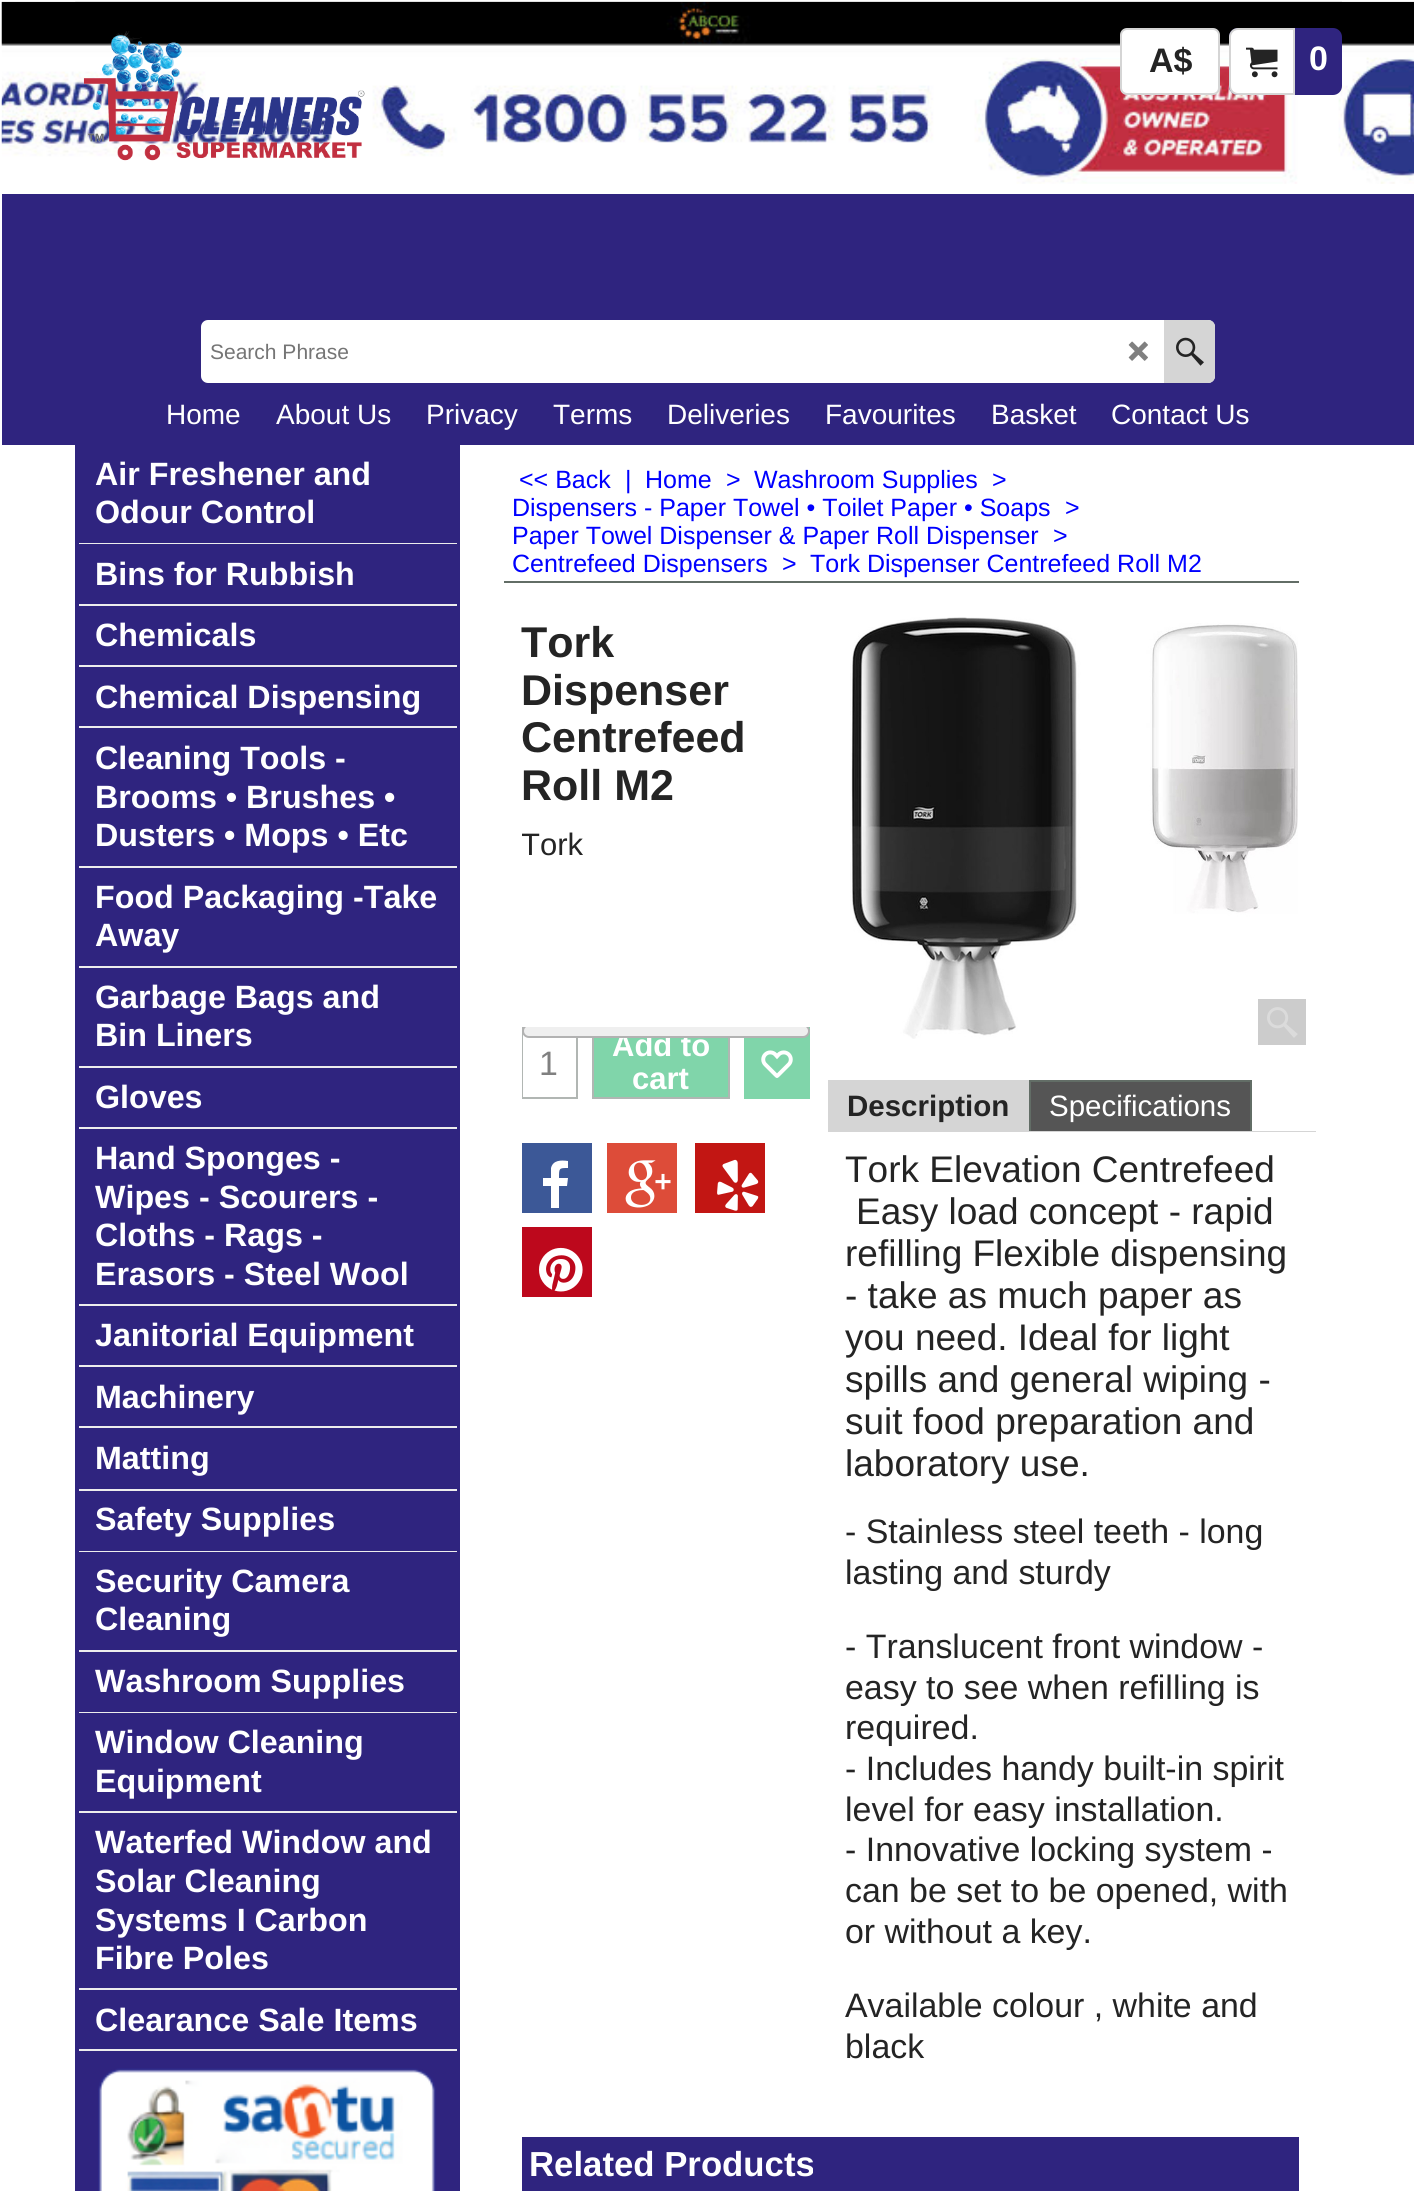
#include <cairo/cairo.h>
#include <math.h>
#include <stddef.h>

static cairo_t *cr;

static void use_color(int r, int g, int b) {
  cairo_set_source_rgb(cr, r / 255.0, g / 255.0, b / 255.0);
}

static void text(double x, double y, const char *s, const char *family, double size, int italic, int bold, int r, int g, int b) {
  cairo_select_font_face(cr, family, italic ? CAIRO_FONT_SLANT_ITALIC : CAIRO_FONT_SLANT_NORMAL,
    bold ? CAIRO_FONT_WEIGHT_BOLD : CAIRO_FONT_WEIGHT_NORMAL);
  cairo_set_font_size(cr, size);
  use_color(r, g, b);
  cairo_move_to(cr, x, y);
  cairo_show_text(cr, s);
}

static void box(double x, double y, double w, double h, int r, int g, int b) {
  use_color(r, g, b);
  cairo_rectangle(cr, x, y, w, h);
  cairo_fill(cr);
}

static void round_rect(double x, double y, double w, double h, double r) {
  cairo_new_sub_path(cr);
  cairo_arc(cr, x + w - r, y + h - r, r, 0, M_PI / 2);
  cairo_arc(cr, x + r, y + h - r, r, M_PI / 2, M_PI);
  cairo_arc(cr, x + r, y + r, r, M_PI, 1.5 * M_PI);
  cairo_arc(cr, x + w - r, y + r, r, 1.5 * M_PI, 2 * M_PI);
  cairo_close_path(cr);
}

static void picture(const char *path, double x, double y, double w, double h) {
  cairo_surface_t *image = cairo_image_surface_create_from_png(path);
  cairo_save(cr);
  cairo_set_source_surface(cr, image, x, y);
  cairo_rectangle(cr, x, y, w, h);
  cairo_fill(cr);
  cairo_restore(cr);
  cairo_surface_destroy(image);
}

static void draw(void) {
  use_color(255, 255, 255);
  cairo_paint(cr);
  picture("img_01.png", 75, 1, 1267, 1);
  picture("img_02.png", 1, 1, 1413, 183);
  picture("img_03.png", 83, 31, 282, 130);
  use_color(255, 255, 255);
  round_rect(1121, 29, 98, 65, 6);
  cairo_fill_preserve(cr);
  use_color(213, 213, 213);
  cairo_stroke(cr);
  use_color(47, 36, 127);
  round_rect(1229, 28, 113, 67, 9);
  cairo_fill(cr);
  use_color(255, 255, 255);
  cairo_new_path(cr);
  cairo_move_to(cr, 1238, 29);
  cairo_line_to(cr, 1294, 29);
  cairo_line_to(cr, 1294, 94);
  cairo_line_to(cr, 1238, 94);
  cairo_curve_to(cr, 1233.5, 94, 1230, 90.5, 1230, 86);
  cairo_line_to(cr, 1230, 37);
  cairo_curve_to(cr, 1230, 32.5, 1233.5, 29, 1238, 29);
  cairo_close_path(cr);
  cairo_fill_preserve(cr);
  use_color(213, 213, 213);
  cairo_stroke(cr);
  picture("img_04.png", 1246, 47, 32, 31);
  box(2, 194, 1412, 251, 47, 36, 127);
  use_color(255, 255, 255);
  round_rect(201, 320, 1014, 63, 7);
  cairo_fill(cr);
  picture("img_05.png", 1128, 341, 20, 20);
  use_color(213, 213, 213);
  cairo_new_path(cr);
  cairo_move_to(cr, 1164, 320);
  cairo_line_to(cr, 1208, 320);
  cairo_curve_to(cr, 1212, 320, 1215, 323, 1215, 327);
  cairo_line_to(cr, 1215, 376);
  cairo_curve_to(cr, 1215, 380, 1212, 383, 1208, 383);
  cairo_line_to(cr, 1164, 383);
  cairo_close_path(cr);
  cairo_fill(cr);
  picture("img_06.png", 1176, 337, 28, 29);
  box(75, 445, 385, 1746, 47, 36, 127);
  box(79, 543, 378, 1, 237, 237, 237);
  box(79, 604, 378, 2, 237, 237, 237);
  box(79, 665, 378, 2, 237, 237, 237);
  box(79, 726, 378, 2, 237, 237, 237);
  box(79, 866, 378, 2, 237, 237, 237);
  box(79, 966, 378, 2, 237, 237, 237);
  box(79, 1066, 378, 2, 237, 237, 237);
  box(79, 1127, 378, 2, 237, 237, 237);
  box(79, 1304, 378, 2, 237, 237, 237);
  box(79, 1365, 378, 2, 237, 237, 237);
  box(79, 1426, 378, 2, 237, 237, 237);
  box(79, 1489, 378, 2, 237, 237, 237);
  box(79, 1551, 378, 1, 237, 237, 237);
  box(79, 1650, 378, 2, 237, 237, 237);
  box(79, 1712, 378, 1, 237, 237, 237);
  box(79, 1811, 378, 2, 237, 237, 237);
  box(79, 1988, 378, 2, 237, 237, 237);
  box(79, 2049, 378, 2, 237, 237, 237);
  picture("img_07.png", 98, 2068, 338, 123);
  box(504, 581, 795, 2, 98, 109, 102);
  cairo_rectangle(cr, 523, 1028, 54, 70);
  use_color(177, 182, 179);
  cairo_stroke(cr);
  box(523, 1034, 1, 63, 255, 255, 255);
  box(594, 1038, 134, 59, 128, 213, 170);
  cairo_rectangle(cr, 593, 1028, 136, 70);
  use_color(177, 182, 179);
  cairo_stroke(cr);
  box(744, 1027, 66, 72, 128, 213, 170);
  picture("img_08.png", 761, 1050, 32, 28);
  box(522, 1143, 70, 70, 60, 88, 151);
  use_color(255, 255, 255);
  cairo_new_path(cr);
  cairo_move_to(cr, 568, 1161);
  cairo_line_to(cr, 568, 1168);
  cairo_curve_to(cr, 559, 1168, 559, 1168, 559, 1178);
  cairo_line_to(cr, 568, 1178);
  cairo_line_to(cr, 567, 1186);
  cairo_line_to(cr, 559, 1186);
  cairo_line_to(cr, 559, 1208);
  cairo_line_to(cr, 551, 1208);
  cairo_line_to(cr, 551, 1186);
  cairo_line_to(cr, 543, 1186);
  cairo_line_to(cr, 543, 1178);
  cairo_line_to(cr, 551, 1178);
  cairo_line_to(cr, 551, 1168);
  cairo_curve_to(cr, 553, 1160, 561, 1160, 568, 1161);
  cairo_close_path(cr);
  cairo_fill(cr);
  box(607, 1143, 70, 70, 221, 76, 57);
  picture("img_09.png", 625, 1160, 46, 48);
  box(695, 1143, 70, 70, 194, 22, 19);
  picture("img_10.png", 717, 1159, 42, 52);
  box(522, 1227, 70, 70, 189, 8, 28);
  picture("img_11.png", 539, 1247, 44, 45);
  picture("img_12.png", 850, 617, 448, 422);
  box(1258, 999, 48, 46, 204, 204, 204);
  picture("img_13.png", 1267, 1007, 31, 31);
  box(828, 1080, 201, 52, 213, 213, 213);
  box(1031, 1082, 219, 49, 85, 85, 85);
  box(1029, 1080, 222, 2, 98, 109, 102);
  box(1250, 1080, 2, 51, 98, 109, 102);
  box(1029, 1080, 2, 51, 98, 109, 102);
  box(1029, 1131, 287, 1, 213, 213, 213);
  box(522, 2137, 777, 54, 47, 36, 127);
  text(1149, 72, "A$", "Liberation Sans", 34, 0, 1, 36, 36, 36);
  text(1309, 70, "0", "Liberation Sans", 34, 0, 1, 255, 255, 255);
  text(210, 359, "Search Phrase", "Liberation Sans", 21, 0, 0, 117, 117, 117);
  text(166, 424, "Home", "Liberation Sans", 28, 0, 0, 255, 255, 255);
  text(276, 424, "About Us", "Liberation Sans", 28, 0, 0, 255, 255, 255);
  text(426, 424, "Privacy", "Liberation Sans", 28, 0, 0, 255, 255, 255);
  text(553, 424, "Terms", "Liberation Sans", 28, 0, 0, 255, 255, 255);
  text(667, 424, "Deliveries", "Liberation Sans", 28, 0, 0, 255, 255, 255);
  text(825, 424, "Favourites", "Liberation Sans", 28, 0, 0, 255, 255, 255);
  text(991, 424, "Basket", "Liberation Sans", 28, 0, 0, 255, 255, 255);
  text(1111, 424, "Contact Us", "Liberation Sans", 28, 0, 0, 255, 255, 255);
  text(95, 485, "Air Freshener and", "Liberation Sans", 32.25, 0, 1, 255, 255, 255);
  text(95, 523, "Odour Control", "Liberation Sans", 32.25, 0, 1, 255, 255, 255);
  text(95, 585, "Bins for Rubbish", "Liberation Sans", 32.25, 0, 1, 255, 255, 255);
  text(95, 646, "Chemicals", "Liberation Sans", 32.25, 0, 1, 255, 255, 255);
  text(95, 708, "Chemical Dispensing", "Liberation Sans", 32.25, 0, 1, 255, 255, 255);
  text(95, 769, "Cleaning Tools -", "Liberation Sans", 32.25, 0, 1, 255, 255, 255);
  text(95, 808, "Brooms • Brushes •", "Liberation Sans", 32.25, 0, 1, 255, 255, 255);
  text(95, 846, "Dusters • Mops • Etc", "Liberation Sans", 32.25, 0, 1, 255, 255, 255);
  text(95, 908, "Food Packaging -Take", "Liberation Sans", 32.25, 0, 1, 255, 255, 255);
  text(95, 946, "Away", "Liberation Sans", 32.25, 0, 1, 255, 255, 255);
  text(95, 1008, "Garbage Bags and", "Liberation Sans", 32.25, 0, 1, 255, 255, 255);
  text(95, 1046, "Bin Liners", "Liberation Sans", 32.25, 0, 1, 255, 255, 255);
  text(95, 1108, "Gloves", "Liberation Sans", 32.25, 0, 1, 255, 255, 255);
  text(95, 1169, "Hand Sponges -", "Liberation Sans", 32.25, 0, 1, 255, 255, 255);
  text(95, 1208, "Wipes - Scourers -", "Liberation Sans", 32.25, 0, 1, 255, 255, 255);
  text(95, 1246, "Cloths - Rags -", "Liberation Sans", 32.25, 0, 1, 255, 255, 255);
  text(95, 1285, "Erasors - Steel Wool", "Liberation Sans", 32.25, 0, 1, 255, 255, 255);
  text(95, 1346, "Janitorial Equipment", "Liberation Sans", 32.25, 0, 1, 255, 255, 255);
  text(95, 1408, "Machinery", "Liberation Sans", 32.25, 0, 1, 255, 255, 255);
  text(95, 1469, "Matting", "Liberation Sans", 32.25, 0, 1, 255, 255, 255);
  text(95, 1530, "Safety Supplies", "Liberation Sans", 32.25, 0, 1, 255, 255, 255);
  text(95, 1592, "Security Camera", "Liberation Sans", 32.25, 0, 1, 255, 255, 255);
  text(95, 1630, "Cleaning", "Liberation Sans", 32.25, 0, 1, 255, 255, 255);
  text(95, 1692, "Washroom Supplies", "Liberation Sans", 32.25, 0, 1, 255, 255, 255);
  text(95, 1753, "Window Cleaning", "Liberation Sans", 32.25, 0, 1, 255, 255, 255);
  text(95, 1792, "Equipment", "Liberation Sans", 32.25, 0, 1, 255, 255, 255);
  text(95, 1853, "Waterfed Window and", "Liberation Sans", 32.25, 0, 1, 255, 255, 255);
  text(95, 1892, "Solar Cleaning", "Liberation Sans", 32.25, 0, 1, 255, 255, 255);
  text(95, 1931, "Systems I Carbon", "Liberation Sans", 32.25, 0, 1, 255, 255, 255);
  text(95, 1969, "Fibre Poles", "Liberation Sans", 32.25, 0, 1, 255, 255, 255);
  text(95, 2031, "Clearance Sale Items", "Liberation Sans", 32.25, 0, 1, 255, 255, 255);
  text(519, 488, "<< Back", "Liberation Sans", 25, 0, 0, 0, 0, 255);
  text(625, 488, "|", "Liberation Sans", 25, 0, 0, 0, 0, 255);
  text(645, 488, "Home", "Liberation Sans", 25, 0, 0, 0, 0, 255);
  text(726, 488, ">", "Liberation Sans", 25, 0, 0, 0, 0, 255);
  text(754, 488, "Washroom Supplies", "Liberation Sans", 25, 0, 0, 0, 0, 255);
  text(992, 488, ">", "Liberation Sans", 25, 0, 0, 0, 0, 255);
  text(512, 516, "Dispensers - Paper Towel • Toilet Paper • Soaps", "Liberation Sans", 25, 0, 0, 0, 0, 255);
  text(1065, 516, ">", "Liberation Sans", 25, 0, 0, 0, 0, 255);
  text(512, 544, "Paper Towel Dispenser & Paper Roll Dispenser", "Liberation Sans", 25, 0, 0, 0, 0, 255);
  text(1053, 544, ">", "Liberation Sans", 25, 0, 0, 0, 0, 255);
  text(512, 572, "Centrefeed Dispensers", "Liberation Sans", 25, 0, 0, 0, 0, 255);
  text(782, 572, ">", "Liberation Sans", 25, 0, 0, 0, 0, 255);
  text(810, 572, "Tork Dispenser Centrefeed Roll M2", "Liberation Sans", 25, 0, 0, 0, 0, 255);
  text(521, 657, "Tork", "Liberation Sans", 43, 0, 1, 36, 36, 36);
  text(521, 705, "Dispenser", "Liberation Sans", 43, 0, 1, 36, 36, 36);
  text(521, 752, "Centrefeed", "Liberation Sans", 43, 0, 1, 36, 36, 36);
  text(521, 800, "Roll M2", "Liberation Sans", 43, 0, 1, 36, 36, 36);
  cairo_save(cr);
  cairo_rectangle(cr, 522, 821, 75, 47);
  cairo_clip(cr);
  text(521, 855, "Tork", "Liberation Sans", 31, 0, 0, 36, 36, 36);
  cairo_restore(cr);
  text(539, 1075, "1", "Liberation Sans", 33.9, 0, 0, 128, 128, 128);
  text(612, 1056, "Add to", "Liberation Sans", 31, 0, 1, 255, 255, 255);
  cairo_save(cr);
  cairo_rectangle(cr, 522, 1027, 288, 72);
  cairo_clip(cr);
  use_color(239, 239, 239);
  round_rect(523, 1025, 286, 12, 6);
  cairo_fill_preserve(cr);
  use_color(178, 178, 178);
  cairo_stroke(cr);
  cairo_restore(cr);
  text(632, 1089, "cart", "Liberation Sans", 31, 0, 1, 255, 255, 255);
  text(847, 1116, "Description", "Liberation Sans", 29.5, 0, 1, 36, 36, 36);
  text(1049, 1116, "Specifications", "Liberation Sans", 29.5, 0, 0, 255, 255, 255);
  text(845, 1182, "Tork Elevation Centrefeed", "Liberation Sans", 37, 0, 0, 36, 36, 36);
  text(856, 1224, "Easy load concept - rapid", "Liberation Sans", 37, 0, 0, 36, 36, 36);
  text(845, 1266, "refilling Flexible dispensing", "Liberation Sans", 37, 0, 0, 36, 36, 36);
  text(845, 1308, "- take as much paper as", "Liberation Sans", 37, 0, 0, 36, 36, 36);
  text(845, 1350, "you need. Ideal for light", "Liberation Sans", 37, 0, 0, 36, 36, 36);
  text(845, 1392, "spills and general wiping -", "Liberation Sans", 37, 0, 0, 36, 36, 36);
  text(845, 1434, "suit food preparation and", "Liberation Sans", 37, 0, 0, 36, 36, 36);
  text(845, 1476, "laboratory use.", "Liberation Sans", 37, 0, 0, 36, 36, 36);
  text(845, 1543, "- Stainless steel teeth - long", "Liberation Sans", 33.9, 0, 0, 36, 36, 36);
  text(845, 1584, "lasting and sturdy", "Liberation Sans", 33.9, 0, 0, 36, 36, 36);
  text(845, 1658, "- Translucent front window -", "Liberation Sans", 33.9, 0, 0, 36, 36, 36);
  text(845, 1699, "easy to see when refilling is", "Liberation Sans", 33.9, 0, 0, 36, 36, 36);
  text(845, 1739, "required.", "Liberation Sans", 33.9, 0, 0, 36, 36, 36);
  text(845, 1780, "- Includes handy built-in spirit", "Liberation Sans", 33.9, 0, 0, 36, 36, 36);
  text(845, 1821, "level for easy installation.", "Liberation Sans", 33.9, 0, 0, 36, 36, 36);
  text(845, 1861, "- Innovative locking system -", "Liberation Sans", 33.9, 0, 0, 36, 36, 36);
  text(845, 1902, "can be set to be opened, with", "Liberation Sans", 33.9, 0, 0, 36, 36, 36);
  text(845, 1943, "or without a key.", "Liberation Sans", 33.9, 0, 0, 36, 36, 36);
  text(845, 2017, "Available colour , white and", "Liberation Sans", 33.9, 0, 0, 36, 36, 36);
  text(845, 2058, "black", "Liberation Sans", 33.9, 0, 0, 36, 36, 36);
  text(529, 2176, "Related Products", "Liberation Sans", 34.75, 0, 1, 255, 255, 255);
}

int main(void) {
  cairo_surface_t *surface = cairo_image_surface_create(CAIRO_FORMAT_RGB24, 1415, 2191);
  cr = cairo_create(surface);
  cairo_font_options_t *options = cairo_font_options_create();
  cairo_font_options_set_hint_metrics(options, CAIRO_HINT_METRICS_OFF);
  cairo_font_options_set_hint_style(options, CAIRO_HINT_STYLE_NONE);
  cairo_set_font_options(cr, options);
  cairo_set_miter_limit(cr, 4);
  draw();
  cairo_surface_write_to_png(surface, "out.png");
  cairo_font_options_destroy(options);
  cairo_destroy(cr);
  cairo_surface_destroy(surface);
  return 0;
}
